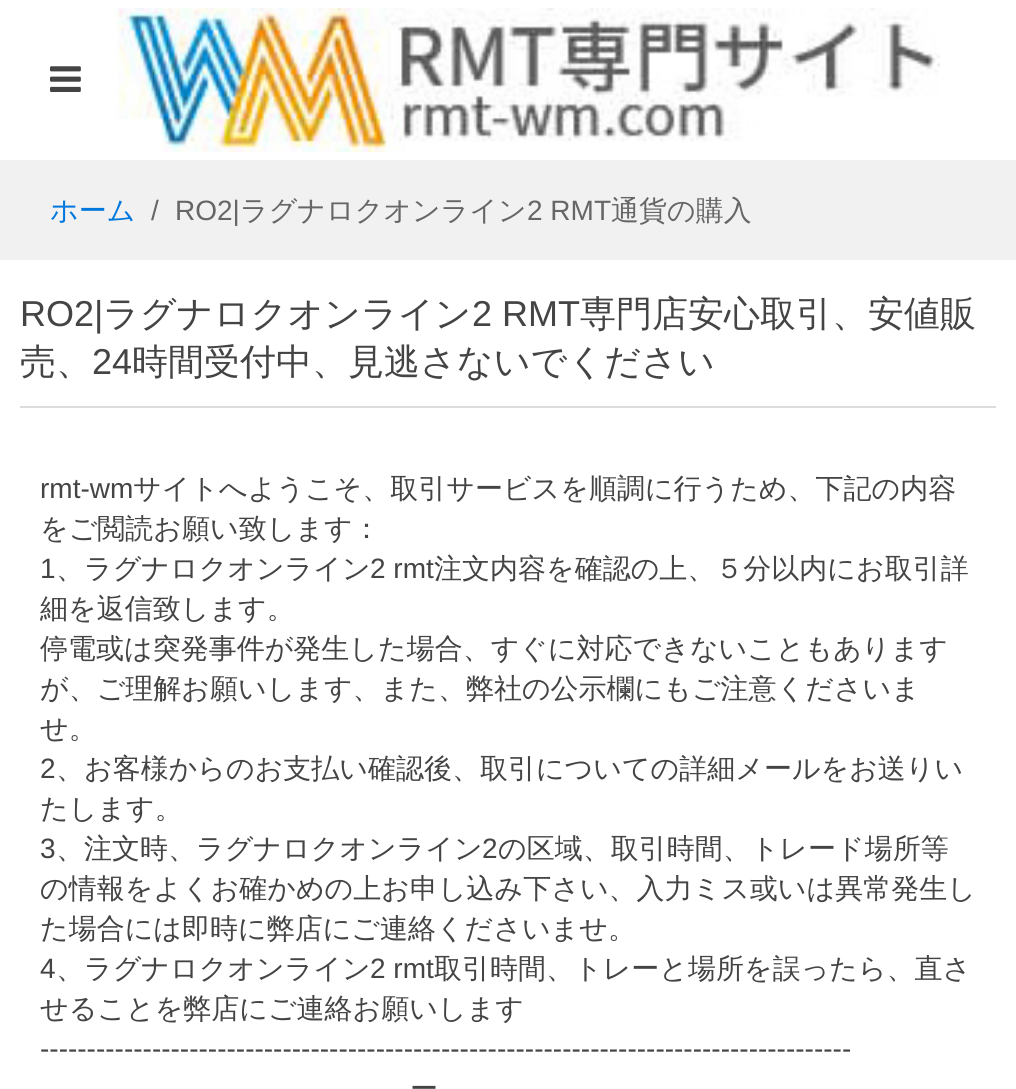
#include <cairo/cairo.h>
#include <math.h>
#include <stddef.h>

static cairo_t *cr;

static void use_color(int r, int g, int b) {
  cairo_set_source_rgb(cr, r / 255.0, g / 255.0, b / 255.0);
}

static void text(double x, double y, const char *s, const char *family, double size, int italic, int bold, int r, int g, int b) {
  cairo_select_font_face(cr, family, italic ? CAIRO_FONT_SLANT_ITALIC : CAIRO_FONT_SLANT_NORMAL,
    bold ? CAIRO_FONT_WEIGHT_BOLD : CAIRO_FONT_WEIGHT_NORMAL);
  cairo_set_font_size(cr, size);
  use_color(r, g, b);
  cairo_move_to(cr, x, y);
  cairo_show_text(cr, s);
}

static void box(double x, double y, double w, double h, int r, int g, int b) {
  use_color(r, g, b);
  cairo_rectangle(cr, x, y, w, h);
  cairo_fill(cr);
}

static void picture(const char *path, double x, double y, double w, double h) {
  cairo_surface_t *image = cairo_image_surface_create_from_png(path);
  cairo_save(cr);
  cairo_set_source_surface(cr, image, x, y);
  cairo_rectangle(cr, x, y, w, h);
  cairo_fill(cr);
  cairo_restore(cr);
  cairo_surface_destroy(image);
}

static void draw(void) {
  use_color(241, 241, 241);
  cairo_paint(cr);
  box(0, 0, 1016, 160, 255, 255, 255);
  picture("img_01.png", 50, 66, 31, 26);
  picture("img_02.png", 116, 8, 824, 144);
  box(0, 260, 1016, 829, 255, 255, 255);
  box(20, 406, 976, 2, 221, 221, 221);
  text(50, 220, "ホーム", "WenQuanYi Zen Hei Medium", 28, 0, 0, 0, 119, 221);
  text(151, 220, "/", "Liberation Sans", 28, 0, 0, 102, 102, 102);
  text(175, 220, "RO2|", "Liberation Sans", 28, 0, 0, 102, 102, 102);
  text(240, 220, "ラグナロクオンライン", "WenQuanYi Zen Hei Medium", 28, 0, 0, 102, 102, 102);
  text(527, 220, "2 RMT", "Liberation Sans", 28, 0, 0, 102, 102, 102);
  text(611, 220, "通貨の購入", "WenQuanYi Zen Hei Medium", 28, 0, 0, 102, 102, 102);
  text(20, 326, "RO2|", "Liberation Sans", 36, 0, 0, 68, 68, 68);
  text(103, 326, "ラグナロクオンライン", "WenQuanYi Zen Hei Medium", 36, 0, 0, 68, 68, 68);
  text(472, 326, "2 RMT", "Liberation Sans", 36, 0, 0, 68, 68, 68);
  text(580, 326, "専門店安心取引、安値販", "WenQuanYi Zen Hei Medium", 36, 0, 0, 68, 68, 68);
  text(20, 374, "売、", "WenQuanYi Zen Hei Medium", 36, 0, 0, 68, 68, 68);
  text(92, 374, "24", "Liberation Sans", 36, 0, 0, 68, 68, 68);
  text(132, 374, "時間受付中、見逃さないでください", "WenQuanYi Zen Hei Medium", 36, 0, 0, 68, 68, 68);
  text(40, 498, "rmt-wm", "Liberation Sans", 28, 0, 0, 68, 68, 68);
  text(133, 498, "サイトへようこそ、取引サービスを順調に行うため、下記の内容", "WenQuanYi Zen Hei Medium", 28, 0, 0, 68, 68, 68);
  text(40, 538, "をご閲読お願い致します：", "WenQuanYi Zen Hei Medium", 28, 0, 0, 68, 68, 68);
  text(40, 578, "1", "Liberation Sans", 28, 0, 0, 68, 68, 68);
  text(56, 578, "、ラグナロクオンライン", "WenQuanYi Zen Hei Medium", 28, 0, 0, 68, 68, 68);
  text(370, 578, "2 rmt", "Liberation Sans", 28, 0, 0, 68, 68, 68);
  text(434, 578, "注文内容を確認の上、５分以内にお取引詳", "WenQuanYi Zen Hei Medium", 28, 0, 0, 68, 68, 68);
  text(40, 618, "細を返信致します。", "WenQuanYi Zen Hei Medium", 28, 0, 0, 68, 68, 68);
  text(40, 658, "停電或は突発事件が発生した場合、すぐに対応できないこともあります", "WenQuanYi Zen Hei Medium", 28, 0, 0, 68, 68, 68);
  text(40, 698, "が、ご理解お願いします、また、弊社の公示欄にもご注意くださいま", "WenQuanYi Zen Hei Medium", 28, 0, 0, 68, 68, 68);
  text(40, 738, "せ。", "WenQuanYi Zen Hei Medium", 28, 0, 0, 68, 68, 68);
  text(40, 778, "2", "Liberation Sans", 28, 0, 0, 68, 68, 68);
  text(56, 778, "、お客様からのお支払い確認後、取引についての詳細メールをお送りい", "WenQuanYi Zen Hei Medium", 28, 0, 0, 68, 68, 68);
  text(40, 818, "たします。", "WenQuanYi Zen Hei Medium", 28, 0, 0, 68, 68, 68);
  text(40, 858, "3", "Liberation Sans", 28, 0, 0, 68, 68, 68);
  text(56, 858, "、注文時、ラグナロクオンライン", "WenQuanYi Zen Hei Medium", 28, 0, 0, 68, 68, 68);
  text(482, 858, "2", "Liberation Sans", 28, 0, 0, 68, 68, 68);
  text(498, 858, "の区域、取引時間、トレード場所等", "WenQuanYi Zen Hei Medium", 28, 0, 0, 68, 68, 68);
  text(40, 898, "の情報をよくお確かめの上お申し込み下さい、入力ミス或いは異常発生し", "WenQuanYi Zen Hei Medium", 28, 0, 0, 68, 68, 68);
  text(40, 938, "た場合には即時に弊店にご連絡くださいませ。", "WenQuanYi Zen Hei Medium", 28, 0, 0, 68, 68, 68);
  text(40, 978, "4", "Liberation Sans", 28, 0, 0, 68, 68, 68);
  text(56, 978, "、ラグナロクオンライン", "WenQuanYi Zen Hei Medium", 28, 0, 0, 68, 68, 68);
  text(370, 978, "2 rmt", "Liberation Sans", 28, 0, 0, 68, 68, 68);
  text(434, 978, "取引時間、トレーと場所を誤ったら、直さ", "WenQuanYi Zen Hei Medium", 28, 0, 0, 68, 68, 68);
  text(40, 1018, "せることを弊店にご連絡お願いします", "WenQuanYi Zen Hei Medium", 28, 0, 0, 68, 68, 68);
  text(40, 1058, "---------------------------------------------------------------------------------------", "Liberation Sans", 28, 0, 0, 68, 68, 68);
  text(410, 1098, "ー", "WenQuanYi Zen Hei Medium", 28, 0, 0, 68, 68, 68);
}

int main(void) {
  cairo_surface_t *surface = cairo_image_surface_create(CAIRO_FORMAT_RGB24, 1016, 1089);
  cr = cairo_create(surface);
  cairo_font_options_t *options = cairo_font_options_create();
  cairo_font_options_set_hint_metrics(options, CAIRO_HINT_METRICS_OFF);
  cairo_font_options_set_hint_style(options, CAIRO_HINT_STYLE_NONE);
  cairo_set_font_options(cr, options);
  cairo_set_miter_limit(cr, 4);
  draw();
  cairo_surface_write_to_png(surface, "out.png");
  cairo_font_options_destroy(options);
  cairo_destroy(cr);
  cairo_surface_destroy(surface);
  return 0;
}
